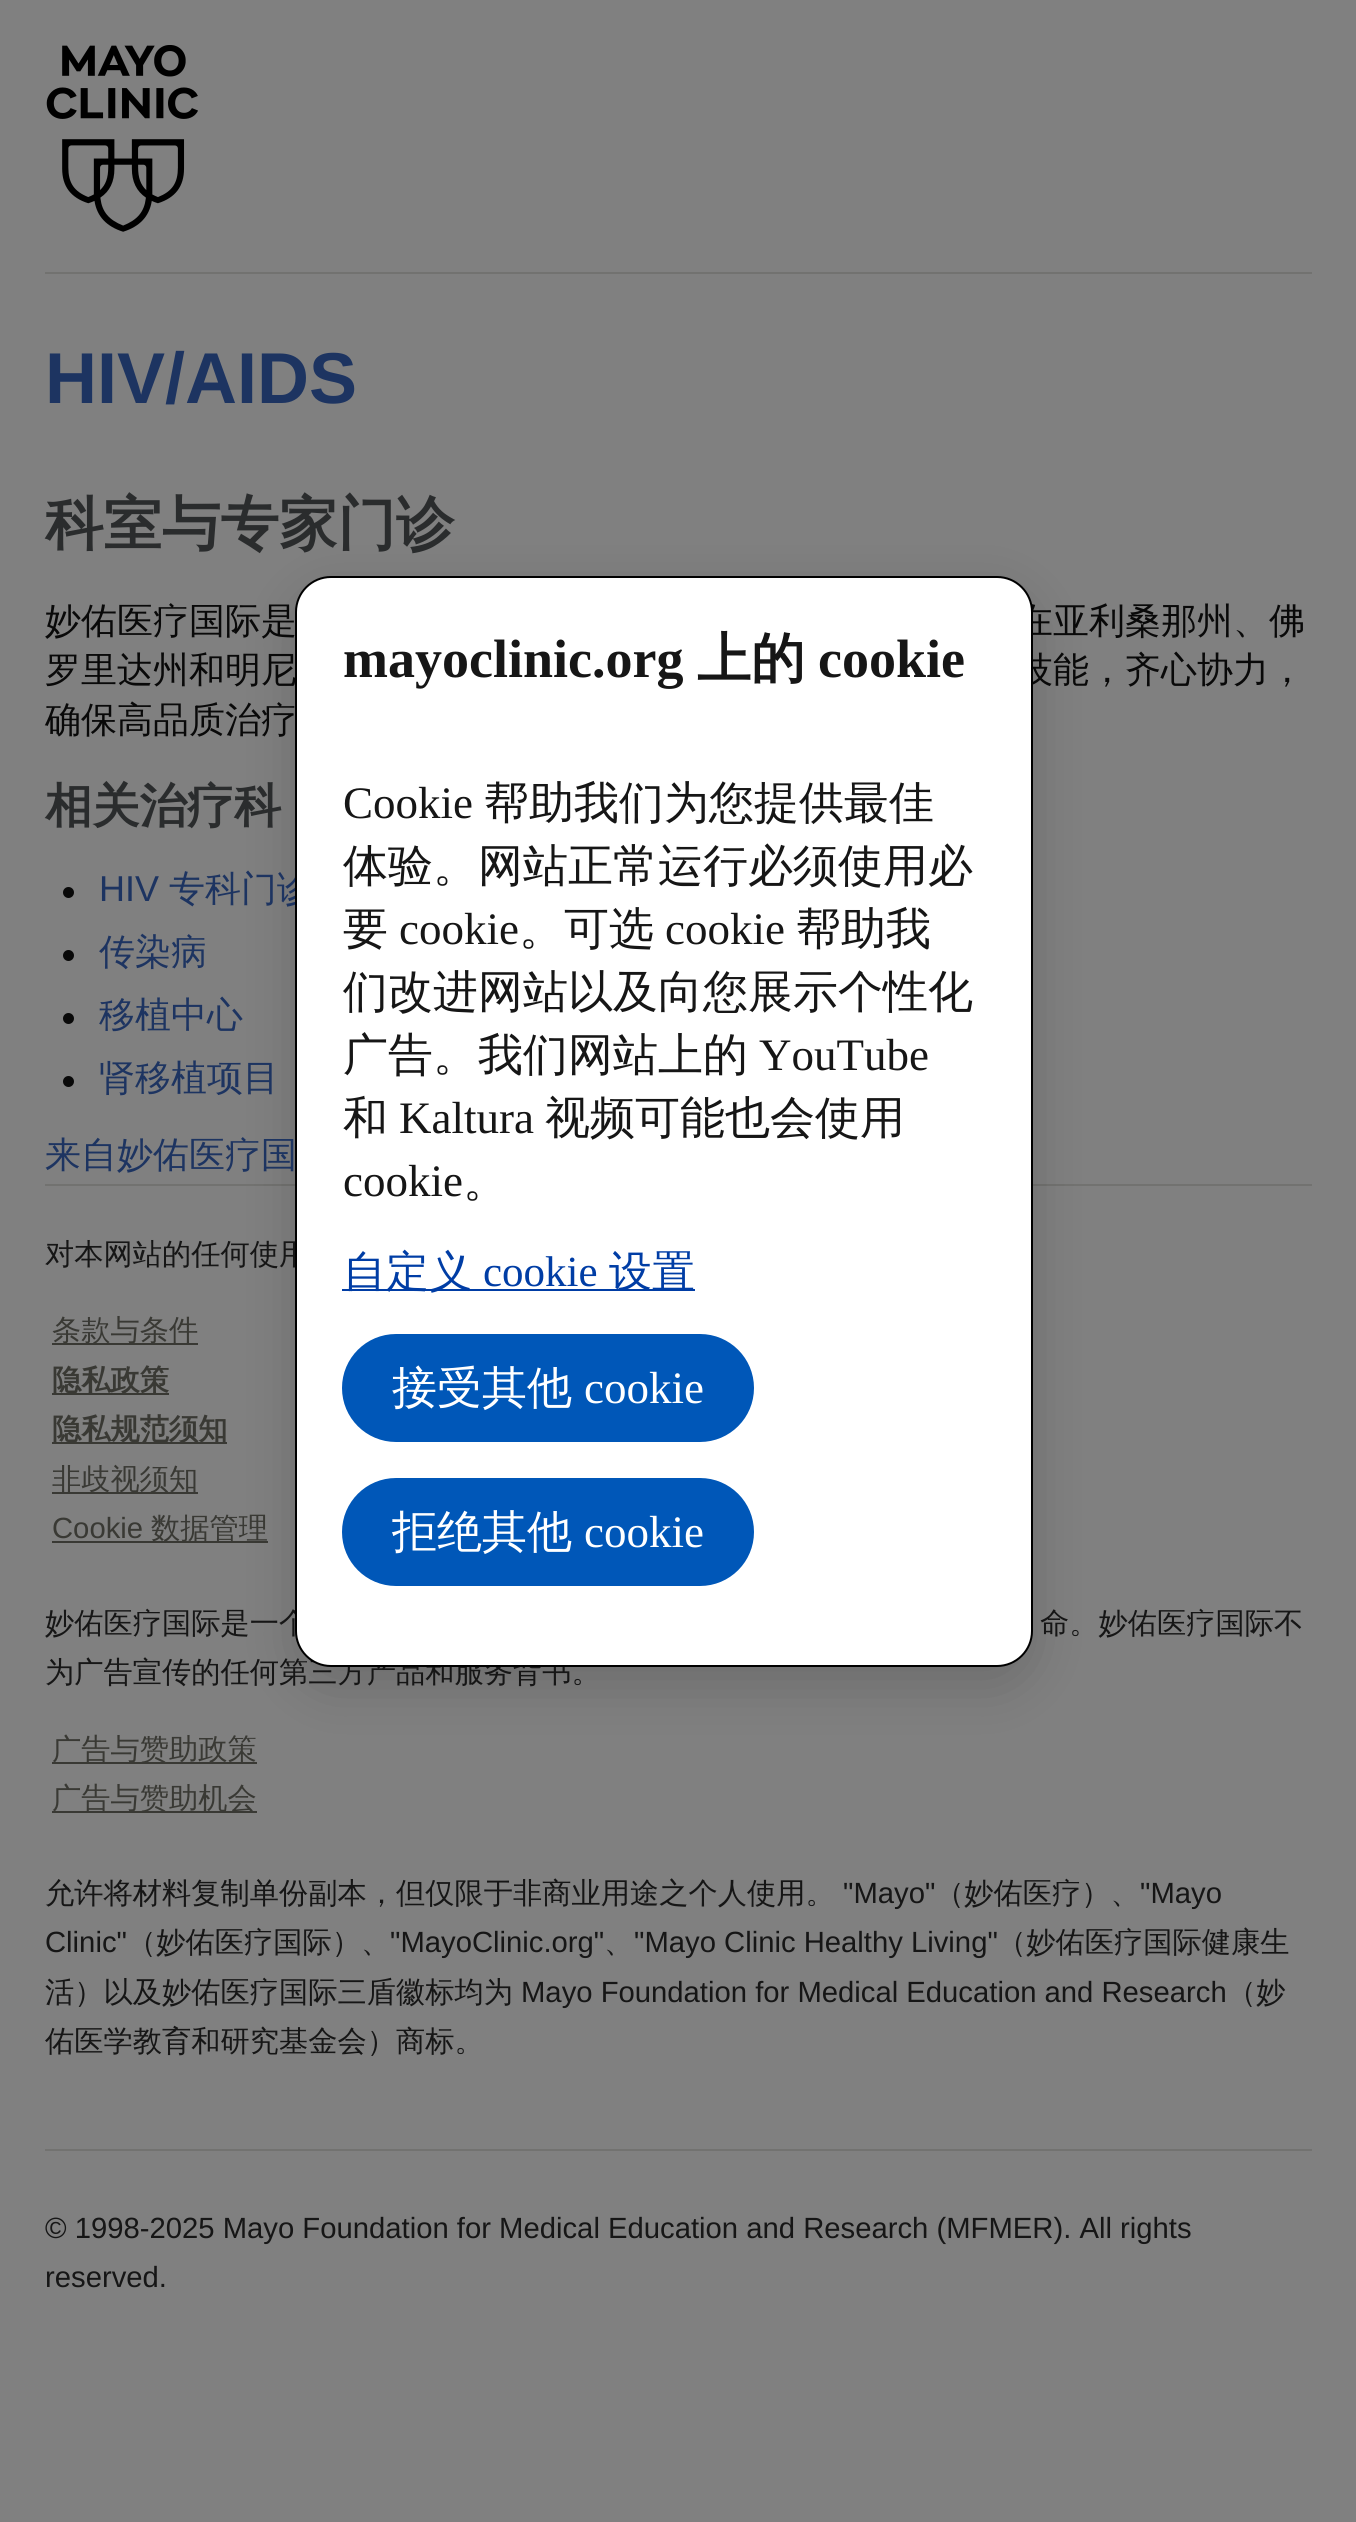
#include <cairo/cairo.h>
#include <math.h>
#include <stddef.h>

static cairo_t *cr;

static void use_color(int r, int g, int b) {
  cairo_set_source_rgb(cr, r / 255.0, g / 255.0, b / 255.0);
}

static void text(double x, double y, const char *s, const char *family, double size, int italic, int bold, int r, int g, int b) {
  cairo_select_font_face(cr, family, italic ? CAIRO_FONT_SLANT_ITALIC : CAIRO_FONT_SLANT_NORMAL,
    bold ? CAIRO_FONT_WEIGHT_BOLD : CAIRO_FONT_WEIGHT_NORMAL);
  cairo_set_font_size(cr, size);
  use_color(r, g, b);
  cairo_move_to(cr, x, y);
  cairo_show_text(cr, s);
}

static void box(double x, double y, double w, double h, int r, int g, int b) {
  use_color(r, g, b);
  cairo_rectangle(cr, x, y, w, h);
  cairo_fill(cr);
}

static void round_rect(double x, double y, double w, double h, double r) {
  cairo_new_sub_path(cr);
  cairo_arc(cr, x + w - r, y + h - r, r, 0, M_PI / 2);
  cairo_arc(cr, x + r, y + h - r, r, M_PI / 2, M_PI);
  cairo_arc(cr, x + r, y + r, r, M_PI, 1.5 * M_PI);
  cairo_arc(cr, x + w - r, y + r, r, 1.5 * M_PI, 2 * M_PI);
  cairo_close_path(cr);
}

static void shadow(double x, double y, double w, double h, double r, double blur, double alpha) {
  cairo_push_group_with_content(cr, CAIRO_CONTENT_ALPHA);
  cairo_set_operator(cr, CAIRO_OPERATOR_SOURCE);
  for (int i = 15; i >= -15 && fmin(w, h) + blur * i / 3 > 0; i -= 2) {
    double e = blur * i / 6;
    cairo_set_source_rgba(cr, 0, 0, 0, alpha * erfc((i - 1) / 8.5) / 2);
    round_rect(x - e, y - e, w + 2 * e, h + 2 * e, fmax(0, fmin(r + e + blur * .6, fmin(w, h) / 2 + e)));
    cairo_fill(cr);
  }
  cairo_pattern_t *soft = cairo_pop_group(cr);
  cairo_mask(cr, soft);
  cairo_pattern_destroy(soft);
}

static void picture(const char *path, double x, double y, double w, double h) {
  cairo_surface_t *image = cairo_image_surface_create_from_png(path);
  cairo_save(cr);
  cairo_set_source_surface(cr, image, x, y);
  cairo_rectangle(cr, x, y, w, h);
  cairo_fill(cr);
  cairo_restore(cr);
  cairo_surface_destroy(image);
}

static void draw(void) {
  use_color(128, 128, 128);
  cairo_paint(cr);
  box(45, 272, 1267, 2, 114, 114, 112);
  picture("img_01.png", 46, 45, 152, 187);
  use_color(9, 9, 9);
  cairo_arc(cr, 68.5, 892.5, 5.5, 0, 2 * M_PI);
  cairo_fill(cr);
  cairo_arc(cr, 68.5, 955.5, 5.5, 0, 2 * M_PI);
  cairo_fill(cr);
  cairo_arc(cr, 68.5, 1018.5, 5.5, 0, 2 * M_PI);
  cairo_fill(cr);
  cairo_arc(cr, 68.5, 1081.5, 5.5, 0, 2 * M_PI);
  cairo_fill(cr);
  box(45, 1184, 1267, 2, 114, 114, 112);
  box(52, 1343, 146, 2, 57, 57, 52);
  box(52, 1393, 117, 2, 57, 57, 52);
  box(52, 1442, 175, 2, 57, 57, 52);
  box(52, 1492, 146, 2, 57, 57, 52);
  box(52, 1541, 216, 2, 57, 57, 52);
  box(52, 1762, 205, 2, 57, 57, 52);
  box(52, 1811, 205, 2, 57, 57, 52);
  box(45, 2149, 1267, 2, 114, 114, 112);
  use_color(0, 0, 0);
  shadow(295, 594, 738, 1091, 36, 27, 0.16);
  text(45, 403, "HIV/AIDS", "Liberation Sans", 72, 0, 1, 29, 52, 97);
  text(45, 544, "科室与专家门诊", "WenQuanYi Zen Hei", 58.5, 0, 1, 42, 44, 45);
  text(45, 633, "妙佑医疗国际是", "WenQuanYi Zen Hei Medium", 36, 0, 0, 9, 9, 9);
  text(1017, 633, "在亚利桑那州、佛", "WenQuanYi Zen Hei Medium", 36, 0, 0, 9, 9, 9);
  text(45, 682, "罗里达州和明尼", "WenQuanYi Zen Hei Medium", 36, 0, 0, 9, 9, 9);
  text(1017, 682, "技能，齐心协力，", "WenQuanYi Zen Hei Medium", 36, 0, 0, 9, 9, 9);
  text(45, 732, "确保高品质治疗", "WenQuanYi Zen Hei Medium", 36, 0, 0, 9, 9, 9);
  text(45, 822, "相关治疗科", "WenQuanYi Zen Hei", 47.25, 0, 1, 42, 44, 45);
  text(99, 901, "HIV", "Liberation Sans", 36, 0, 0, 29, 52, 97);
  text(169, 901, "专科门诊", "WenQuanYi Zen Hei Medium", 36, 0, 0, 29, 52, 97);
  text(99, 964, "传染病", "WenQuanYi Zen Hei Medium", 36, 0, 0, 29, 52, 97);
  text(99, 1027, "移植中心", "WenQuanYi Zen Hei Medium", 36, 0, 0, 29, 52, 97);
  text(99, 1090, "肾移植项目", "WenQuanYi Zen Hei Medium", 36, 0, 0, 29, 52, 97);
  text(45, 1167, "来自妙佑医疗国", "WenQuanYi Zen Hei Medium", 36, 0, 0, 29, 52, 97);
  text(45, 1264, "对本网站的任何使用", "WenQuanYi Zen Hei Medium", 29.25, 0, 0, 22, 22, 22);
  text(52, 1340, "条款与条件", "WenQuanYi Zen Hei Medium", 29.25, 0, 0, 57, 57, 52);
  text(52, 1390, "隐私政策", "WenQuanYi Zen Hei", 29.25, 0, 1, 57, 57, 52);
  text(52, 1439, "隐私规范须知", "WenQuanYi Zen Hei", 29.25, 0, 1, 57, 57, 52);
  text(52, 1489, "非歧视须知", "WenQuanYi Zen Hei Medium", 29.25, 0, 0, 57, 57, 52);
  text(52, 1538, "Cookie", "Liberation Sans", 29.25, 0, 0, 57, 57, 52);
  text(151, 1538, "数据管理", "WenQuanYi Zen Hei Medium", 29.25, 0, 0, 57, 57, 52);
  text(45, 1633, "妙佑医疗国际是一个", "WenQuanYi Zen Hei Medium", 29.25, 0, 0, 22, 22, 22);
  text(1040, 1633, "命。妙佑医疗国际不", "WenQuanYi Zen Hei Medium", 29.25, 0, 0, 22, 22, 22);
  text(45, 1682, "为广告宣传的任何第三方产品和服务背书。", "WenQuanYi Zen Hei Medium", 29.25, 0, 0, 22, 22, 22);
  text(52, 1759, "广告与赞助政策", "WenQuanYi Zen Hei Medium", 29.25, 0, 0, 57, 57, 52);
  text(52, 1808, "广告与赞助机会", "WenQuanYi Zen Hei Medium", 29.25, 0, 0, 57, 57, 52);
  text(45, 1903, "允许将材料复制单份副本，但仅限于非商业用途之个人使用。", "WenQuanYi Zen Hei Medium", 29.25, 0, 0, 22, 22, 22);
  text(843, 1903, "\"Mayo\"", "Liberation Sans", 29.25, 0, 0, 22, 22, 22);
  text(935, 1903, "（妙佑医疗）、", "WenQuanYi Zen Hei Medium", 29.25, 0, 0, 22, 22, 22);
  text(1140, 1903, "\"Mayo", "Liberation Sans", 29.25, 0, 0, 22, 22, 22);
  text(45, 1952, "Clinic\"", "Liberation Sans", 29.25, 0, 0, 22, 22, 22);
  text(127, 1952, "（妙佑医疗国际）、", "WenQuanYi Zen Hei Medium", 29.25, 0, 0, 22, 22, 22);
  text(390, 1952, "\"MayoClinic.org\"", "Liberation Sans", 29.25, 0, 0, 22, 22, 22);
  text(604, 1952, "、", "WenQuanYi Zen Hei Medium", 29.25, 0, 0, 22, 22, 22);
  text(634, 1952, "\"Mayo Clinic Healthy Living\"", "Liberation Sans", 29.25, 0, 0, 22, 22, 22);
  text(997, 1952, "（妙佑医疗国际健康生", "WenQuanYi Zen Hei Medium", 29.25, 0, 0, 22, 22, 22);
  text(45, 2002, "活）以及妙佑医疗国际三盾徽标均为", "WenQuanYi Zen Hei Medium", 29.25, 0, 0, 22, 22, 22);
  text(521, 2002, "Mayo Foundation for Medical Education and Research", "Liberation Sans", 29.25, 0, 0, 22, 22, 22);
  text(1227, 2002, "（妙", "WenQuanYi Zen Hei Medium", 29.25, 0, 0, 22, 22, 22);
  text(45, 2051, "佑医学教育和研究基金会）商标。", "WenQuanYi Zen Hei Medium", 29.25, 0, 0, 22, 22, 22);
  text(45, 2238, "© 1998-2025 Mayo Foundation for Medical Education and Research (MFMER). All rights", "Liberation Sans", 29.25, 0, 0, 22, 22, 22);
  text(45, 2287, "reserved.", "Liberation Sans", 29.25, 0, 0, 22, 22, 22);
  use_color(255, 255, 255);
  round_rect(296, 577, 736, 1089, 35);
  cairo_fill_preserve(cr);
  use_color(0, 0, 0);
  cairo_stroke(cr);
  text(343, 677, "mayoclinic.org", "Liberation Serif", 54, 0, 1, 22, 22, 22);
  text(697, 677, "上的", "WenQuanYi Zen Hei", 54, 0, 1, 22, 22, 22);
  text(818, 677, "cookie", "Liberation Serif", 54, 0, 1, 22, 22, 22);
  text(343, 818, "Cookie", "Liberation Serif", 45, 0, 0, 22, 22, 22);
  text(484, 818, "帮助我们为您提供最佳", "WenQuanYi Zen Hei Medium", 45, 0, 0, 22, 22, 22);
  text(343, 881, "体验。网站正常运行必须使用必", "WenQuanYi Zen Hei Medium", 45, 0, 0, 22, 22, 22);
  text(343, 944, "要", "WenQuanYi Zen Hei Medium", 45, 0, 0, 22, 22, 22);
  text(399, 944, "cookie", "Liberation Serif", 45, 0, 0, 22, 22, 22);
  text(519, 944, "。可选", "WenQuanYi Zen Hei Medium", 45, 0, 0, 22, 22, 22);
  text(665, 944, "cookie", "Liberation Serif", 45, 0, 0, 22, 22, 22);
  text(796, 944, "帮助我", "WenQuanYi Zen Hei Medium", 45, 0, 0, 22, 22, 22);
  text(343, 1007, "们改进网站以及向您展示个性化", "WenQuanYi Zen Hei Medium", 45, 0, 0, 22, 22, 22);
  text(343, 1070, "广告。我们网站上的", "WenQuanYi Zen Hei Medium", 45, 0, 0, 22, 22, 22);
  text(759, 1070, "YouTube", "Liberation Serif", 45, 0, 0, 22, 22, 22);
  text(343, 1133, "和", "WenQuanYi Zen Hei Medium", 45, 0, 0, 22, 22, 22);
  text(399, 1133, "Kaltura", "Liberation Serif", 45, 0, 0, 22, 22, 22);
  text(545, 1133, "视频可能也会使用", "WenQuanYi Zen Hei Medium", 45, 0, 0, 22, 22, 22);
  text(343, 1196, "cookie", "Liberation Serif", 45, 0, 0, 22, 22, 22);
  text(463, 1196, "。", "WenQuanYi Zen Hei Medium", 45, 0, 0, 22, 22, 22);
  text(483, 1286, "cookie", "Liberation Serif", 43, 0, 0, 0, 61, 165);
  box(342, 1289, 353, 2, 0, 61, 165);
  text(343, 1286, "自定义", "WenQuanYi Zen Hei Medium", 43, 0, 0, 0, 61, 165);
  text(609, 1286, "设置", "WenQuanYi Zen Hei Medium", 43, 0, 0, 0, 61, 165);
  use_color(0, 87, 184);
  round_rect(344.5, 1336.5, 407, 103, 51.5);
  cairo_fill_preserve(cr);
  cairo_set_line_width(cr, 5);
  cairo_stroke(cr);
  text(392, 1403, "接受其他", "WenQuanYi Zen Hei Medium", 45, 0, 0, 255, 255, 255);
  text(584, 1403, "cookie", "Liberation Serif", 45, 0, 0, 255, 255, 255);
  use_color(0, 87, 184);
  round_rect(344.5, 1480.5, 407, 103, 51.5);
  cairo_fill_preserve(cr);
  cairo_stroke(cr);
  text(392, 1547, "拒绝其他", "WenQuanYi Zen Hei Medium", 45, 0, 0, 255, 255, 255);
  text(584, 1547, "cookie", "Liberation Serif", 45, 0, 0, 255, 255, 255);
}

int main(void) {
  cairo_surface_t *surface = cairo_image_surface_create(CAIRO_FORMAT_RGB24, 1356, 2522);
  cr = cairo_create(surface);
  cairo_font_options_t *options = cairo_font_options_create();
  cairo_font_options_set_hint_metrics(options, CAIRO_HINT_METRICS_OFF);
  cairo_font_options_set_hint_style(options, CAIRO_HINT_STYLE_NONE);
  cairo_set_font_options(cr, options);
  cairo_set_miter_limit(cr, 4);
  draw();
  cairo_surface_write_to_png(surface, "out.png");
  cairo_font_options_destroy(options);
  cairo_destroy(cr);
  cairo_surface_destroy(surface);
  return 0;
}
